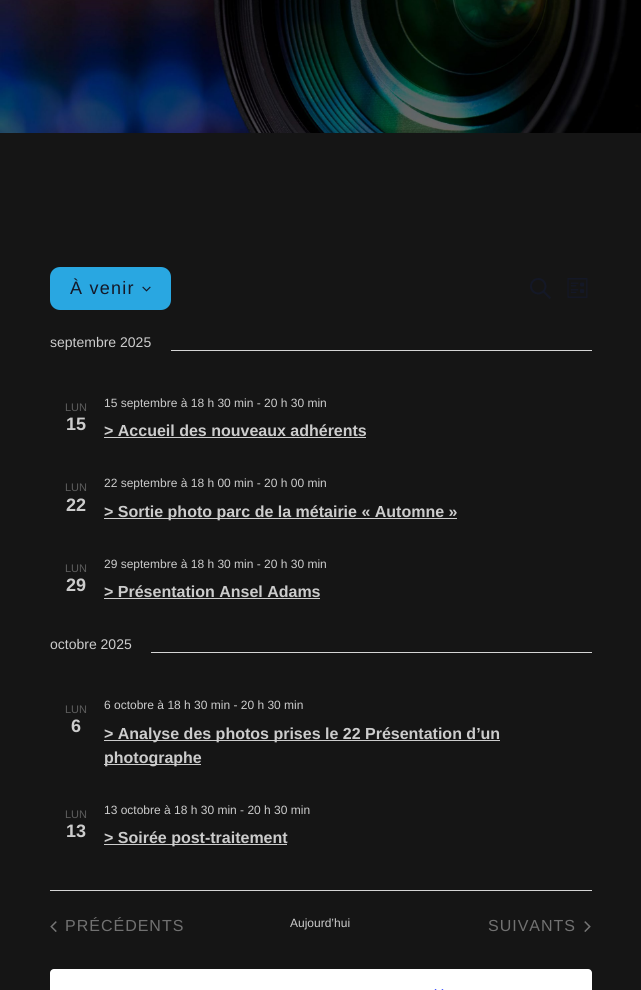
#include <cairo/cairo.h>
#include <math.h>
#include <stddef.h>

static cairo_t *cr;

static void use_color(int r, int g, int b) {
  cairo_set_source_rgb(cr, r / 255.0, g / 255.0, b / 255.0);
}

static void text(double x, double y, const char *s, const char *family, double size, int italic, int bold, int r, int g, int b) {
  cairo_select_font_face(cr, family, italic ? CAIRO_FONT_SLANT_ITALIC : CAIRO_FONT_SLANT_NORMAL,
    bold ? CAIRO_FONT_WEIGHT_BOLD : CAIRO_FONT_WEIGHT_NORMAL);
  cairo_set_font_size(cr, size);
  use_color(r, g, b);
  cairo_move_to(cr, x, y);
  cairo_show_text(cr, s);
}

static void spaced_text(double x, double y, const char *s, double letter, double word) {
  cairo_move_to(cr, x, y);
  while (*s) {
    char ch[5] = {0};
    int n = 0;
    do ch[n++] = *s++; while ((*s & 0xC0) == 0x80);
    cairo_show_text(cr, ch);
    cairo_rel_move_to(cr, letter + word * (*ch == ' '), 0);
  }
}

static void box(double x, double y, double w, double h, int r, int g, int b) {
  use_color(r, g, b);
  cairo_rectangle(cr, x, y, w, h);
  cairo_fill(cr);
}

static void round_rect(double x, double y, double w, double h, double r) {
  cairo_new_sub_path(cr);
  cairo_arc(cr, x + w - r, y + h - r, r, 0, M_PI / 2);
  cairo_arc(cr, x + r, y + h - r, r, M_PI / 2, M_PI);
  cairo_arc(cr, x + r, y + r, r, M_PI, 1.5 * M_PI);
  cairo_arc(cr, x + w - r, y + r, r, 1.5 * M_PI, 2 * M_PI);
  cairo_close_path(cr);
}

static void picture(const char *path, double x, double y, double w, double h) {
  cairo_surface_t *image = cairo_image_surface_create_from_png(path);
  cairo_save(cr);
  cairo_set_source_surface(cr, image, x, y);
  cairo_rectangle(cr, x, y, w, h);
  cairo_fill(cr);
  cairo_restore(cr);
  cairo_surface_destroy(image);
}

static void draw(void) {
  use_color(21, 21, 21);
  cairo_paint(cr);
  picture("img_01.png", 0, 0, 641, 133);
  use_color(41, 167, 225);
  round_rect(50, 267, 121, 43, 10);
  cairo_fill(cr);
  picture("img_02.png", 142, 286, 9, 6);
  picture("img_03.png", 530, 278, 21, 21);
  picture("img_04.png", 567, 278, 21, 20);
  box(171, 350, 421, 1, 213, 213, 213);
  box(104, 437, 262, 1, 204, 204, 204);
  box(104, 518, 353, 1, 204, 204, 204);
  box(104, 598, 216, 1, 204, 204, 204);
  box(151, 652, 441, 1, 213, 213, 213);
  box(104, 740, 396, 1, 204, 204, 204);
  box(104, 764, 97, 1, 204, 204, 204);
  box(104, 844, 183, 1, 204, 204, 204);
  box(50, 890, 542, 1, 213, 213, 213);
  picture("img_05.png", 50, 921, 7, 11);
  picture("img_06.png", 584, 921, 7, 11);
  use_color(255, 255, 255);
  round_rect(50, 969, 542, 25, 4);
  cairo_fill(cr);
  picture("img_07.png", 434, 989, 10, 1);
  cairo_select_font_face(cr, "Liberation Sans", CAIRO_FONT_SLANT_NORMAL, CAIRO_FONT_WEIGHT_NORMAL);
  cairo_set_font_size(cr, 18);
  use_color(20, 24, 39);
  spaced_text(70, 294, "À venir", 1.25, 0);
  text(50, 347, "septembre 2025", "Liberation Sans", 14, 0, 0, 204, 204, 204);
  text(65, 411, "LUN", "Liberation Sans", 11, 0, 0, 93, 93, 93);
  text(66, 430, "15", "Liberation Sans", 18, 0, 1, 204, 204, 204);
  text(104, 407, "15 septembre à 18 h 30 min - 20 h 30 min", "Liberation Sans", 12, 0, 0, 204, 204, 204);
  text(104, 436, "> Accueil des nouveaux adhérents", "Liberation Sans", 16, 0, 1, 204, 204, 204);
  text(65, 491, "LUN", "Liberation Sans", 11, 0, 0, 93, 93, 93);
  text(66, 511, "22", "Liberation Sans", 18, 0, 1, 204, 204, 204);
  text(104, 487, "22 septembre à 18 h 00 min - 20 h 00 min", "Liberation Sans", 12, 0, 0, 204, 204, 204);
  text(104, 517, "> Sortie photo parc de la métairie « Automne »", "Liberation Sans", 16, 0, 1, 204, 204, 204);
  text(65, 572, "LUN", "Liberation Sans", 11, 0, 0, 93, 93, 93);
  text(66, 591, "29", "Liberation Sans", 18, 0, 1, 204, 204, 204);
  text(104, 568, "29 septembre à 18 h 30 min - 20 h 30 min", "Liberation Sans", 12, 0, 0, 204, 204, 204);
  text(104, 597, "> Présentation Ansel Adams", "Liberation Sans", 16, 0, 1, 204, 204, 204);
  text(50, 649, "octobre 2025", "Liberation Sans", 14, 0, 0, 204, 204, 204);
  text(65, 713, "LUN", "Liberation Sans", 11, 0, 0, 93, 93, 93);
  text(71, 732, "6", "Liberation Sans", 18, 0, 1, 204, 204, 204);
  text(104, 709, "6 octobre à 18 h 30 min - 20 h 30 min", "Liberation Sans", 12, 0, 0, 204, 204, 204);
  text(104, 739, "> Analyse des photos prises le 22 Présentation d’un", "Liberation Sans", 16, 0, 1, 204, 204, 204);
  text(104, 763, "photographe", "Liberation Sans", 16, 0, 1, 204, 204, 204);
  text(65, 818, "LUN", "Liberation Sans", 11, 0, 0, 93, 93, 93);
  text(66, 837, "13", "Liberation Sans", 18, 0, 1, 204, 204, 204);
  text(104, 814, "13 octobre à 18 h 30 min - 20 h 30 min", "Liberation Sans", 12, 0, 0, 204, 204, 204);
  text(104, 843, "> Soirée post-traitement", "Liberation Sans", 16, 0, 1, 204, 204, 204);
  cairo_select_font_face(cr, "Liberation Sans", CAIRO_FONT_SLANT_NORMAL, CAIRO_FONT_WEIGHT_NORMAL);
  use_color(113, 113, 113);
  spaced_text(65, 931, "PRÉCÉDENTS", 1, 0);
  text(290, 927, "Aujourd’hui", "Liberation Sans", 12, 0, 0, 204, 204, 204);
  cairo_set_font_size(cr, 16);
  use_color(113, 113, 113);
  spaced_text(488, 931, "SUIVANTS", 1, 0);
}

int main(void) {
  cairo_surface_t *surface = cairo_image_surface_create(CAIRO_FORMAT_RGB24, 641, 990);
  cr = cairo_create(surface);
  cairo_font_options_t *options = cairo_font_options_create();
  cairo_font_options_set_hint_metrics(options, CAIRO_HINT_METRICS_OFF);
  cairo_font_options_set_hint_style(options, CAIRO_HINT_STYLE_NONE);
  cairo_set_font_options(cr, options);
  cairo_set_miter_limit(cr, 4);
  draw();
  cairo_surface_write_to_png(surface, "out.png");
  cairo_font_options_destroy(options);
  cairo_destroy(cr);
  cairo_surface_destroy(surface);
  return 0;
}
